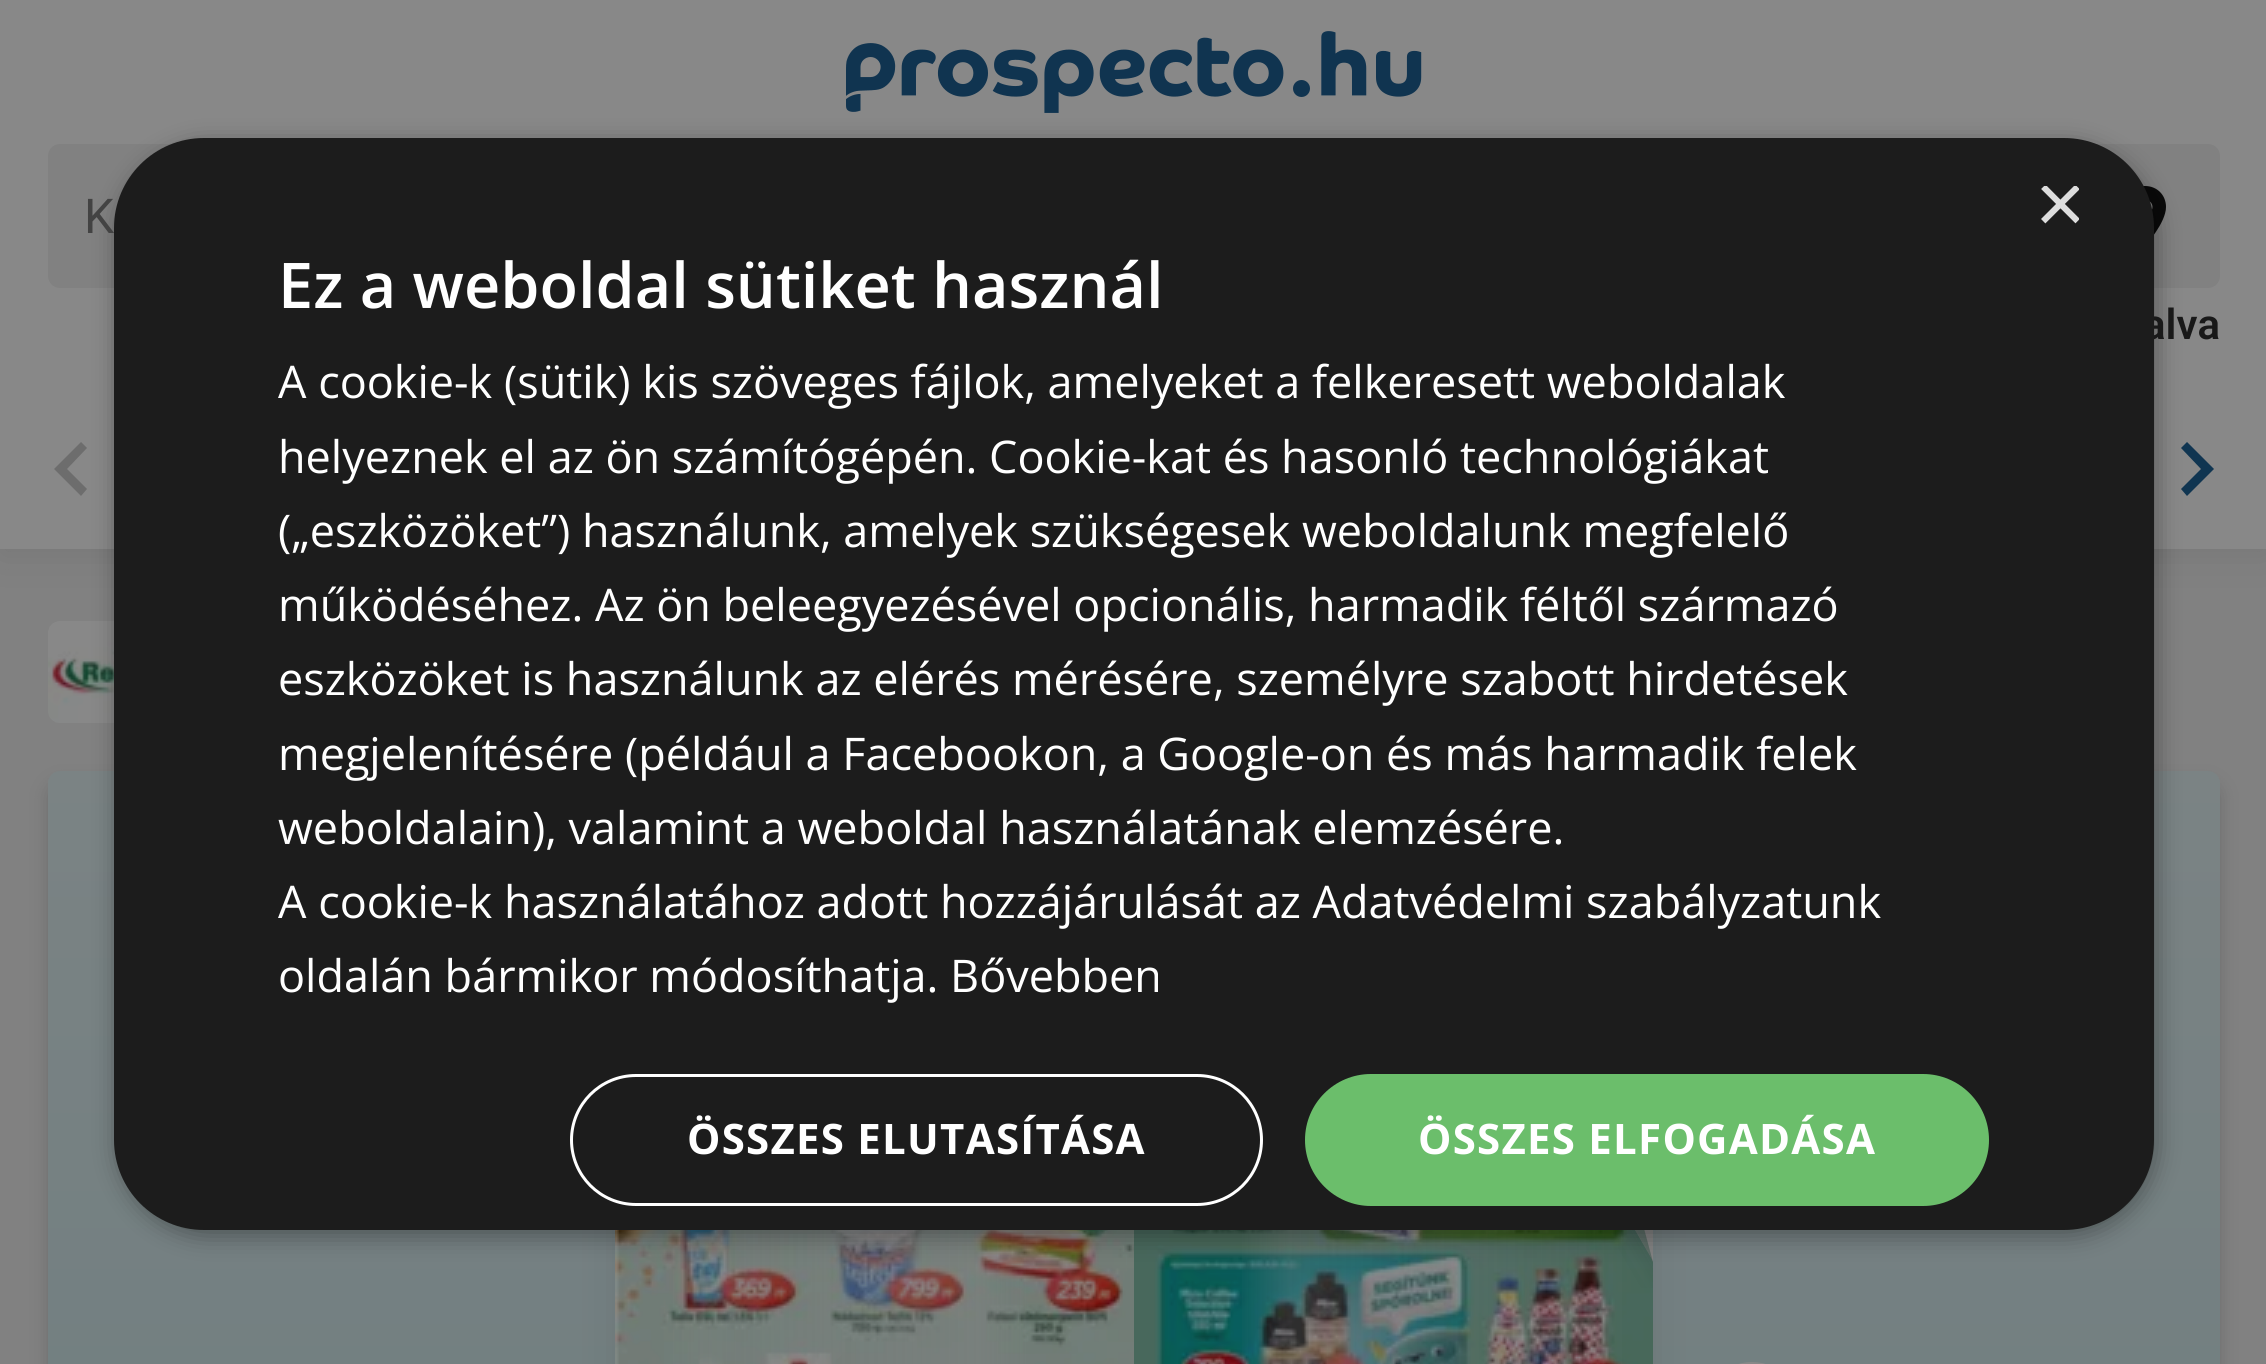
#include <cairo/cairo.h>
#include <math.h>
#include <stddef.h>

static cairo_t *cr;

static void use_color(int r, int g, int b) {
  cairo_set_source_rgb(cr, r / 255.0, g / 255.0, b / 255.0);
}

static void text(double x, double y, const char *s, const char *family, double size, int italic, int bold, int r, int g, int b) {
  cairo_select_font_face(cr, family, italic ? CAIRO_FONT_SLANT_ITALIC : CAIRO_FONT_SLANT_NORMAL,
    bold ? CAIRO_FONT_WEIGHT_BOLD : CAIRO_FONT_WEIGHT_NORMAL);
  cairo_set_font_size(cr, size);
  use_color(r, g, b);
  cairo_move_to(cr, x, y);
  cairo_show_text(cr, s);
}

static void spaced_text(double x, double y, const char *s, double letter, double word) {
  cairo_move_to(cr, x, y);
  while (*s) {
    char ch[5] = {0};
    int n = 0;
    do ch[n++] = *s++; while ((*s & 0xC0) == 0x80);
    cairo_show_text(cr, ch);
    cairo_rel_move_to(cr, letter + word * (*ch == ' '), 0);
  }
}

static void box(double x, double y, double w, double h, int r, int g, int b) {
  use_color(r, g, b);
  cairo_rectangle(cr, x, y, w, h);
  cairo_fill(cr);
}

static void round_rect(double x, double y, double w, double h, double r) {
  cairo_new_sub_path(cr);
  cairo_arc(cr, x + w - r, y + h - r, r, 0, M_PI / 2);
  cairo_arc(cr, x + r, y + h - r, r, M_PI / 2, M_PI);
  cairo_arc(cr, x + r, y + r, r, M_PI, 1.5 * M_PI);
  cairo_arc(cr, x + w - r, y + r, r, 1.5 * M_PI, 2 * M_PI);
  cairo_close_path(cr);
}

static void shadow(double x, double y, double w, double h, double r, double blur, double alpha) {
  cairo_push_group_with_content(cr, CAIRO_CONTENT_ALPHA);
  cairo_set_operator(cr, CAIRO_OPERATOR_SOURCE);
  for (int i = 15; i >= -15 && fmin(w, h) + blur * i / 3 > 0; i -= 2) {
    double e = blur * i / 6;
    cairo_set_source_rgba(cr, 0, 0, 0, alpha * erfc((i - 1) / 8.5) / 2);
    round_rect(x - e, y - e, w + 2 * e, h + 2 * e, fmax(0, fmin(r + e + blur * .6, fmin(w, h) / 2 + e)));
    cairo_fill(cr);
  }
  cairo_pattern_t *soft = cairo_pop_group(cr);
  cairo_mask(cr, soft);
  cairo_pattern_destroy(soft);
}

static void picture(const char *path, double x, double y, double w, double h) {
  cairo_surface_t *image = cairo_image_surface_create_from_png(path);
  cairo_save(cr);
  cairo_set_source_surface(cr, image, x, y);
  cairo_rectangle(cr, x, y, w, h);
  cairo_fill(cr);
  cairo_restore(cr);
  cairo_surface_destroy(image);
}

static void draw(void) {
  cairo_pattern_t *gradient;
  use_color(129, 129, 129);
  cairo_paint(cr);
  use_color(25, 25, 25);
  shadow(0, 6, 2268, 549, 0, 18, 0.1);
  box(0, 0, 2266, 549, 136, 136, 136);
  picture("img_01.png", 846, 31, 576, 82);
  use_color(129, 129, 129);
  round_rect(48, 144, 2172, 144, 12);
  cairo_fill(cr);
  use_color(9, 9, 9);
  cairo_new_path(cr);
  cairo_move_to(cr, 2145, 214);
  cairo_curve_to(cr, 2135, 214, 2135, 200, 2145, 200);
  cairo_curve_to(cr, 2155, 200, 2155, 214, 2145, 214);
  cairo_move_to(cr, 2145, 186);
  cairo_curve_to(cr, 2133, 186, 2124, 195, 2124, 207);
  cairo_curve_to(cr, 2124, 223, 2145, 246, 2145, 246);
  cairo_curve_to(cr, 2145, 246, 2166, 223, 2166, 207);
  cairo_curve_to(cr, 2166, 195, 2157, 186, 2145, 186);
  cairo_close_path(cr);
  cairo_fill(cr);
  use_color(109, 109, 109);
  cairo_new_path(cr);
  cairo_move_to(cr, 87, 489);
  cairo_line_to(cr, 67, 469);
  cairo_line_to(cr, 87, 448);
  cairo_line_to(cr, 81, 442);
  cairo_line_to(cr, 54, 469);
  cairo_line_to(cr, 81, 496);
  cairo_close_path(cr);
  cairo_fill(cr);
  use_color(16, 53, 81);
  cairo_new_path(cr);
  cairo_move_to(cr, 2181, 489);
  cairo_line_to(cr, 2201, 469);
  cairo_line_to(cr, 2181, 448);
  cairo_line_to(cr, 2187, 442);
  cairo_line_to(cr, 2214, 469);
  cairo_line_to(cr, 2187, 496);
  cairo_close_path(cr);
  cairo_fill(cr);
  picture("img_02.png", 48, 621, 66, 102);
  use_color(25, 25, 25);
  shadow(48, 783, 2172, 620, 12, 9, 0.2);
  gradient = cairo_pattern_create_linear(1134, 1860, 1134, 771);
  cairo_pattern_add_color_stop_rgba(gradient, 0, 0.427, 0.49, 0.498, 1);
  cairo_pattern_add_color_stop_rgba(gradient, 1, 0.482, 0.514, 0.518, 1);
  cairo_set_source(cr, gradient);
  cairo_pattern_destroy(gradient);
  round_rect(48, 771, 2172, 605, 12);
  cairo_fill(cr);
  use_color(25, 25, 25);
  shadow(615, 1011, 1038, 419, 12, 18, 0.1);
  picture("img_03.png", 615, 1230, 519, 134);
  gradient = cairo_pattern_create_linear(615, 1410, 1134, 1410);
  cairo_pattern_add_color_stop_rgba(gradient, 0, 0.533, 0.533, 0.533, 0);
  cairo_pattern_add_color_stop_rgba(gradient, 0.7, 0.533, 0.533, 0.533, 0.3);
  cairo_pattern_add_color_stop_rgba(gradient, 0.8, 0.533, 0.533, 0.533, 0);
  cairo_set_source(cr, gradient);
  cairo_pattern_destroy(gradient);
  cairo_rectangle(cr, 673, 1230, 353, 134);
  cairo_fill(cr);
  picture("img_05.png", 1134, 1230, 519, 134);
  gradient = cairo_pattern_create_linear(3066, 1297, 1693, 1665);
  cairo_pattern_add_color_stop_rgba(gradient, 0.95, 0.443, 0.443, 0.443, 1);
  cairo_pattern_add_color_stop_rgba(gradient, 0.98, 0.533, 0.533, 0.533, 1);
  cairo_set_source(cr, gradient);
  cairo_pattern_destroy(gradient);
  cairo_new_path(cr);
  cairo_move_to(cr, 1525, 1039);
  cairo_line_to(cr, 1653, 1261);
  cairo_line_to(cr, 1653, 1017);
  cairo_curve_to(cr, 1653, 1010, 1648, 1005, 1641, 1005);
  cairo_line_to(cr, 1584, 1005);
  cairo_close_path(cr);
  cairo_fill(cr);
  picture("img_04.png", 1618, 1230, 35, 58);
  gradient = cairo_pattern_create_linear(1761, 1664, 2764, 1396);
  cairo_pattern_add_color_stop_rgba(gradient, 0, 0.506, 0.506, 0.506, 1);
  cairo_pattern_add_color_stop_rgba(gradient, 0.2, 0.533, 0.533, 0.533, 1);
  cairo_set_source(cr, gradient);
  cairo_pattern_destroy(gradient);
  cairo_new_path(cr);
  cairo_move_to(cr, 1653, 1262);
  cairo_line_to(cr, 1584, 1005);
  cairo_line_to(cr, 1641, 1005);
  cairo_curve_to(cr, 1648, 1005, 1653, 1010, 1653, 1017);
  cairo_close_path(cr);
  cairo_fill(cr);
  gradient = cairo_pattern_create_linear(1653, 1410, 1134, 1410);
  cairo_pattern_add_color_stop_rgba(gradient, 0, 0.533, 0.533, 0.533, 0);
  cairo_pattern_add_color_stop_rgba(gradient, 0.7, 0.533, 0.533, 0.533, 0.3);
  cairo_pattern_add_color_stop_rgba(gradient, 0.8, 0.533, 0.533, 0.533, 0);
  cairo_set_source(cr, gradient);
  cairo_pattern_destroy(gradient);
  cairo_rectangle(cr, 1242, 1230, 380, 134);
  cairo_fill(cr);
  use_color(0, 0, 0);
  shadow(117, 144, 2040, 1092, 90, 12, 0.35);
  use_color(136, 136, 136);
  round_rect(1704, 1362, 96, 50, 48);
  cairo_fill(cr);
  text(84, 233, "K", "Roboto", 48, 0, 0, 67, 67, 67);
  text(2143, 339, "alva", "Roboto SemiBold", 42, 0, 0, 25, 25, 25);
  use_color(28, 28, 28);
  round_rect(114, 138, 2040, 1092, 90);
  cairo_fill(cr);
  cairo_save(cr);
  cairo_rectangle(cr, 2034, 186, 45, 45);
  cairo_clip(cr);
  text(2035, 233, "×", "Liberation Sans", 87, 0, 0, 221, 221, 221);
  cairo_restore(cr);
  text(278, 308, "Ez a weboldal sütiket használ", "Open Sans SemiBold", 63, 0, 0, 255, 255, 255);
  round_rect(571.5, 1075.5, 690, 129, 64.5);
  cairo_set_line_width(cr, 3);
  cairo_stroke(cr);
  cairo_select_font_face(cr, "Open Sans", CAIRO_FONT_SLANT_NORMAL, CAIRO_FONT_WEIGHT_BOLD);
  cairo_set_font_size(cr, 42);
  spaced_text(687, 1154, "ÖSSZES ELUTASÍTÁSA", 1.25, 0);
  use_color(107, 190, 107);
  round_rect(1305, 1074, 684, 132, 66);
  cairo_fill(cr);
  use_color(255, 255, 255);
  spaced_text(1418, 1154, "ÖSSZES ELFOGADÁSA", 1.25, 0);
  text(278, 992, "oldalán bármikor módosíthatja. Bővebben", "Open Sans", 45, 0, 0, 255, 255, 255);
  text(278, 918, "A cookie-k használatához adott hozzájárulását az Adatvédelmi szabályzatunk", "Open Sans", 45, 0, 0, 255, 255, 255);
  text(278, 844, "weboldalain), valamint a weboldal használatának elemzésére.", "Open Sans", 45, 0, 0, 255, 255, 255);
  text(278, 770, "megjelenítésére (például a Facebookon, a Google-on és más harmadik felek", "Open Sans", 45, 0, 0, 255, 255, 255);
  text(278, 695, "eszközöket is használunk az elérés mérésére, személyre szabott hirdetések", "Open Sans", 45, 0, 0, 255, 255, 255);
  text(278, 621, "működéséhez. Az ön beleegyezésével opcionális, harmadik féltől származó", "Open Sans", 45, 0, 0, 255, 255, 255);
  text(278, 547, "(„eszközöket”) használunk, amelyek szükségesek weboldalunk megfelelő", "Open Sans", 45, 0, 0, 255, 255, 255);
  text(278, 473, "helyeznek el az ön számítógépén. Cookie-kat és hasonló technológiákat", "Open Sans", 45, 0, 0, 255, 255, 255);
  text(278, 398, "A cookie-k (sütik) kis szöveges fájlok, amelyeket a felkeresett weboldalak", "Open Sans", 45, 0, 0, 255, 255, 255);
}

int main(void) {
  cairo_surface_t *surface = cairo_image_surface_create(CAIRO_FORMAT_RGB24, 2266, 1364);
  cr = cairo_create(surface);
  cairo_font_options_t *options = cairo_font_options_create();
  cairo_font_options_set_hint_metrics(options, CAIRO_HINT_METRICS_OFF);
  cairo_font_options_set_hint_style(options, CAIRO_HINT_STYLE_NONE);
  cairo_set_font_options(cr, options);
  cairo_set_miter_limit(cr, 4);
  draw();
  cairo_surface_write_to_png(surface, "out.png");
  cairo_font_options_destroy(options);
  cairo_destroy(cr);
  cairo_surface_destroy(surface);
  return 0;
}
